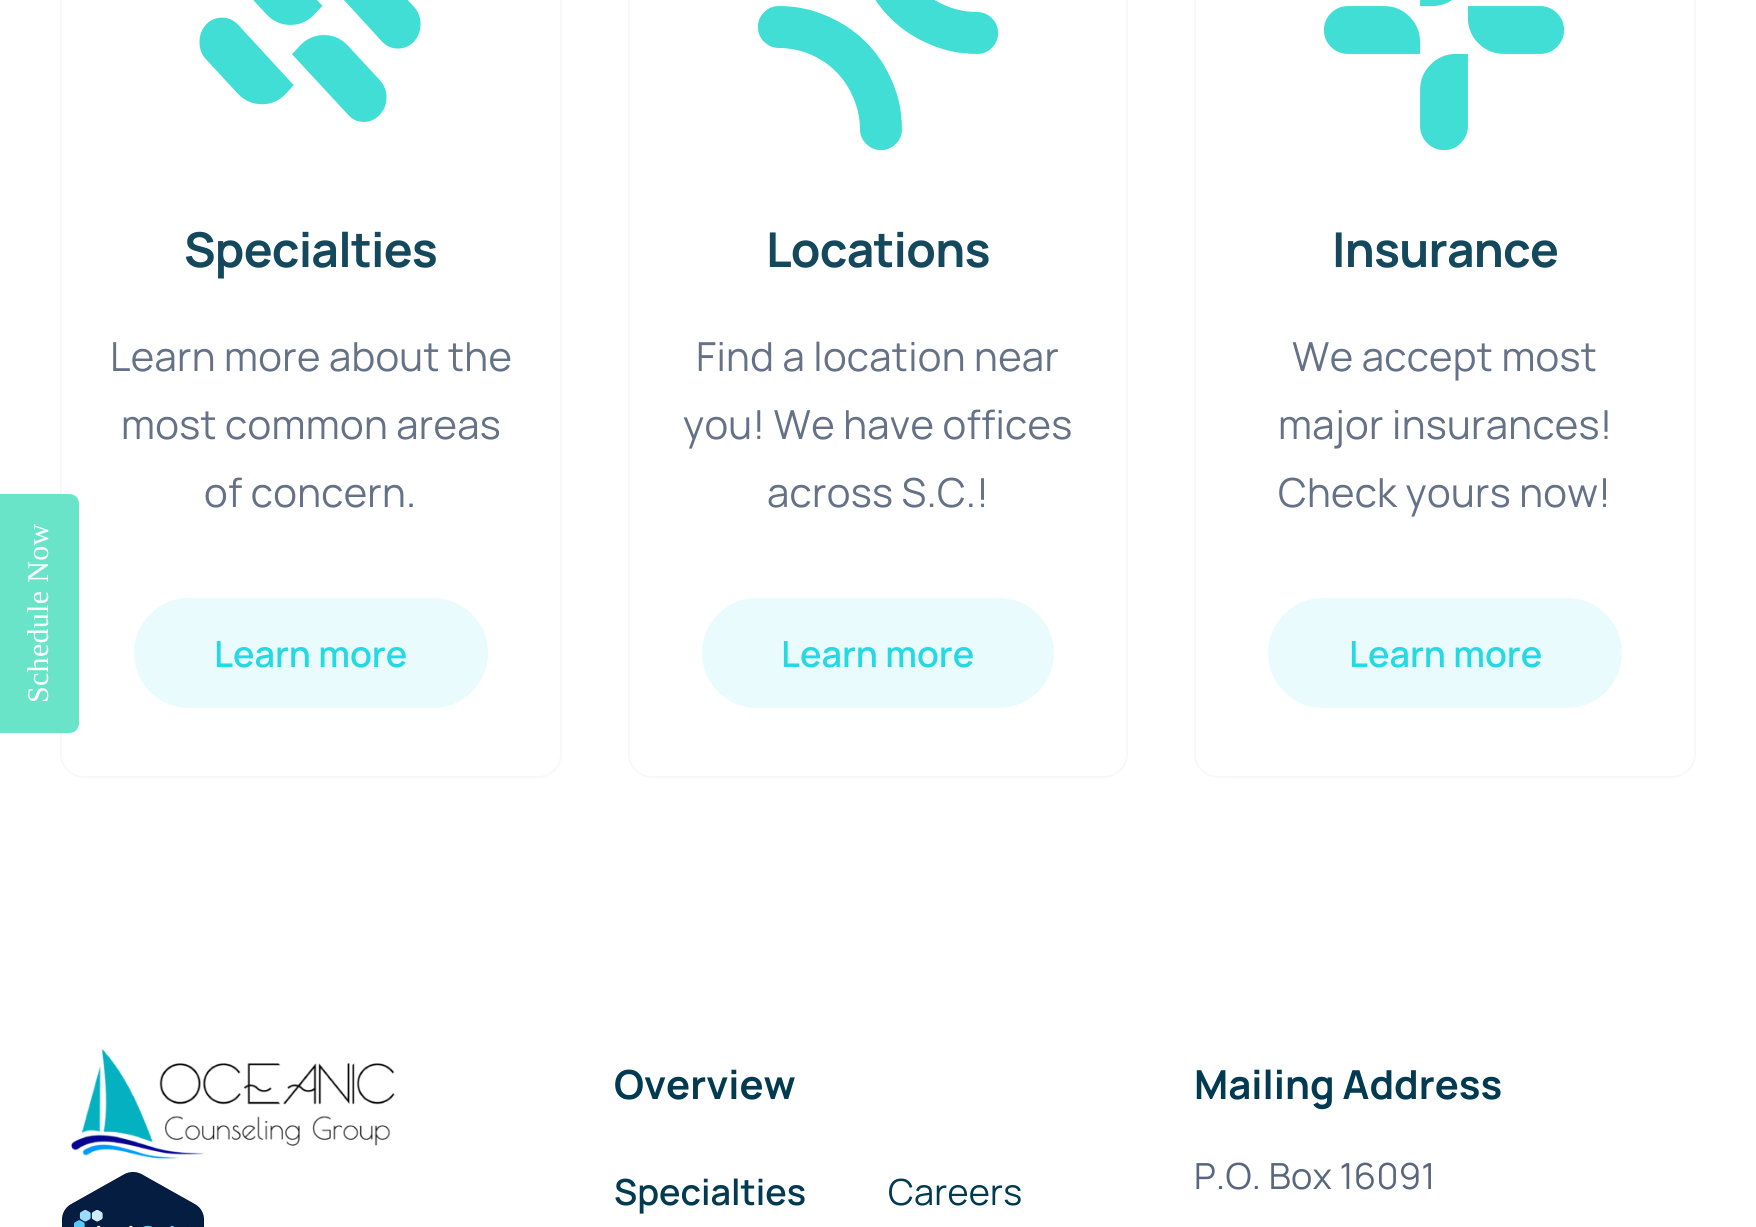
#include <cairo/cairo.h>
#include <math.h>
#include <stddef.h>

static cairo_t *cr;

static void use_color(int r, int g, int b) {
  cairo_set_source_rgb(cr, r / 255.0, g / 255.0, b / 255.0);
}

static void text(double x, double y, const char *s, const char *family, double size, int italic, int bold, int r, int g, int b) {
  cairo_select_font_face(cr, family, italic ? CAIRO_FONT_SLANT_ITALIC : CAIRO_FONT_SLANT_NORMAL,
    bold ? CAIRO_FONT_WEIGHT_BOLD : CAIRO_FONT_WEIGHT_NORMAL);
  cairo_set_font_size(cr, size);
  use_color(r, g, b);
  cairo_move_to(cr, x, y);
  cairo_show_text(cr, s);
}

static void spaced_text(double x, double y, const char *s, double letter, double word) {
  cairo_move_to(cr, x, y);
  while (*s) {
    char ch[5] = {0};
    int n = 0;
    do ch[n++] = *s++; while ((*s & 0xC0) == 0x80);
    cairo_show_text(cr, ch);
    cairo_rel_move_to(cr, letter + word * (*ch == ' '), 0);
  }
}

static void round_rect(double x, double y, double w, double h, double r) {
  cairo_new_sub_path(cr);
  cairo_arc(cr, x + w - r, y + h - r, r, 0, M_PI / 2);
  cairo_arc(cr, x + r, y + h - r, r, M_PI / 2, M_PI);
  cairo_arc(cr, x + r, y + r, r, M_PI, 1.5 * M_PI);
  cairo_arc(cr, x + w - r, y + r, r, 1.5 * M_PI, 2 * M_PI);
  cairo_close_path(cr);
}

static void picture(const char *path, double x, double y, double w, double h) {
  cairo_surface_t *image = cairo_image_surface_create_from_png(path);
  cairo_save(cr);
  cairo_set_source_surface(cr, image, x, y);
  cairo_rectangle(cr, x, y, w, h);
  cairo_fill(cr);
  cairo_restore(cr);
  cairo_surface_destroy(image);
}

static void draw(void) {
  use_color(255, 255, 255);
  cairo_paint(cr);
  use_color(247, 248, 249);
  cairo_set_fill_rule(cr, CAIRO_FILL_RULE_EVEN_ODD);
  cairo_new_path(cr);
  cairo_move_to(cr, 84, -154);
  cairo_line_to(cr, 538, -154);
  cairo_curve_to(cr, 551, -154, 562, -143, 562, -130);
  cairo_line_to(cr, 562, 754);
  cairo_curve_to(cr, 562, 767, 551, 778, 538, 778);
  cairo_line_to(cr, 84, 778);
  cairo_curve_to(cr, 71, 778, 60, 767, 60, 754);
  cairo_line_to(cr, 60, -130);
  cairo_curve_to(cr, 60, -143, 71, -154, 84, -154);
  cairo_close_path(cr);
  cairo_move_to(cr, 84, -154);
  cairo_line_to(cr, 538, -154);
  cairo_curve_to(cr, 550, -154, 560, -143, 560, -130);
  cairo_line_to(cr, 560, 754);
  cairo_curve_to(cr, 560, 766, 550, 776, 538, 776);
  cairo_line_to(cr, 84, 776);
  cairo_curve_to(cr, 72, 776, 62, 766, 62, 754);
  cairo_line_to(cr, 62, -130);
  cairo_curve_to(cr, 62, -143, 72, -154, 84, -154);
  cairo_close_path(cr);
  cairo_fill(cr);
  use_color(105, 228, 201);
  cairo_set_fill_rule(cr, CAIRO_FILL_RULE_WINDING);
  cairo_new_path(cr);
  cairo_move_to(cr, 0, 733);
  cairo_line_to(cr, 0, 494);
  cairo_line_to(cr, 69, 494);
  cairo_curve_to(cr, 75, 494, 79, 498, 79, 504);
  cairo_line_to(cr, 79, 723);
  cairo_curve_to(cr, 79, 729, 75, 733, 69, 733);
  cairo_close_path(cr);
  cairo_fill(cr);
  picture("img_01.png", 199, 0, 222, 122);
  use_color(233, 251, 252);
  round_rect(134, 598, 354, 110, 55);
  cairo_fill(cr);
  use_color(247, 248, 249);
  cairo_set_fill_rule(cr, CAIRO_FILL_RULE_EVEN_ODD);
  cairo_new_path(cr);
  cairo_move_to(cr, 652, -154);
  cairo_line_to(cr, 1104, -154);
  cairo_curve_to(cr, 1117, -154, 1128, -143, 1128, -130);
  cairo_line_to(cr, 1128, 754);
  cairo_curve_to(cr, 1128, 767, 1117, 778, 1104, 778);
  cairo_line_to(cr, 652, 778);
  cairo_curve_to(cr, 639, 778, 628, 767, 628, 754);
  cairo_line_to(cr, 628, -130);
  cairo_curve_to(cr, 628, -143, 639, -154, 652, -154);
  cairo_close_path(cr);
  cairo_move_to(cr, 652, -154);
  cairo_line_to(cr, 1104, -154);
  cairo_curve_to(cr, 1116, -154, 1126, -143, 1126, -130);
  cairo_line_to(cr, 1126, 754);
  cairo_curve_to(cr, 1126, 766, 1116, 776, 1104, 776);
  cairo_line_to(cr, 652, 776);
  cairo_curve_to(cr, 640, 776, 630, 766, 630, 754);
  cairo_line_to(cr, 630, -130);
  cairo_curve_to(cr, 630, -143, 640, -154, 652, -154);
  cairo_close_path(cr);
  cairo_fill(cr);
  picture("img_02.png", 757, 0, 242, 151);
  use_color(233, 251, 252);
  round_rect(702, 598, 352, 110, 55);
  cairo_fill(cr);
  use_color(247, 248, 249);
  cairo_new_path(cr);
  cairo_move_to(cr, 1218, -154);
  cairo_line_to(cr, 1672, -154);
  cairo_curve_to(cr, 1685, -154, 1696, -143, 1696, -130);
  cairo_line_to(cr, 1696, 754);
  cairo_curve_to(cr, 1696, 767, 1685, 778, 1672, 778);
  cairo_line_to(cr, 1218, 778);
  cairo_curve_to(cr, 1205, 778, 1194, 767, 1194, 754);
  cairo_line_to(cr, 1194, -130);
  cairo_curve_to(cr, 1194, -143, 1205, -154, 1218, -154);
  cairo_close_path(cr);
  cairo_move_to(cr, 1218, -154);
  cairo_line_to(cr, 1672, -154);
  cairo_curve_to(cr, 1684, -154, 1694, -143, 1694, -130);
  cairo_line_to(cr, 1694, 754);
  cairo_curve_to(cr, 1694, 766, 1684, 776, 1672, 776);
  cairo_line_to(cr, 1218, 776);
  cairo_curve_to(cr, 1206, 776, 1196, 766, 1196, 754);
  cairo_line_to(cr, 1196, -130);
  cairo_curve_to(cr, 1196, -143, 1206, -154, 1218, -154);
  cairo_close_path(cr);
  cairo_fill(cr);
  picture("img_03.png", 1323, 0, 242, 151);
  use_color(233, 251, 252);
  round_rect(1268, 598, 354, 110, 55);
  cairo_fill(cr);
  picture("img_04.png", 71, 1048, 324, 111);
  picture("img_05.png", 62, 1172, 142, 55);
  cairo_select_font_face(cr, "Liberation Serif", CAIRO_FONT_SLANT_NORMAL, CAIRO_FONT_WEIGHT_NORMAL);
  cairo_set_font_size(cr, 30);
  use_color(255, 255, 255);
  cairo_save(cr);
  cairo_translate(cr, 48, 703);
  cairo_rotate(cr, -90 * M_PI / 180);
  spaced_text(0, 0, "Schedule Now", 0.3, 0);
  cairo_restore(cr);
  cairo_select_font_face(cr, "Manrope", CAIRO_FONT_SLANT_NORMAL, CAIRO_FONT_WEIGHT_BOLD);
  cairo_set_font_size(cr, 48);
  use_color(20, 72, 93);
  spaced_text(184, 267, "Specialties", -0.75, 0);
  cairo_select_font_face(cr, "Manrope", CAIRO_FONT_SLANT_NORMAL, CAIRO_FONT_WEIGHT_NORMAL);
  cairo_set_font_size(cr, 40);
  use_color(101, 113, 134);
  spaced_text(110, 371, "Learn more about the", 0.3, 0);
  spaced_text(121, 439, "most common areas", 0.3, 0);
  spaced_text(204, 507, "of concern.", 0.3, 0);
  text(214, 667, "Learn more", "Manrope SemiBold", 36, 0, 0, 37, 217, 226);
  cairo_select_font_face(cr, "Manrope", CAIRO_FONT_SLANT_NORMAL, CAIRO_FONT_WEIGHT_BOLD);
  cairo_set_font_size(cr, 48);
  use_color(20, 72, 93);
  spaced_text(766, 267, "Locations", -0.75, 0);
  cairo_select_font_face(cr, "Manrope", CAIRO_FONT_SLANT_NORMAL, CAIRO_FONT_WEIGHT_NORMAL);
  cairo_set_font_size(cr, 40);
  use_color(101, 113, 134);
  spaced_text(696, 371, "Find a location near", 0.3, 0);
  spaced_text(683, 439, "you! We have offices", 0.3, 0);
  spaced_text(767, 507, "across S.C.!", 0.3, 0);
  text(781, 667, "Learn more", "Manrope SemiBold", 36, 0, 0, 37, 217, 226);
  cairo_select_font_face(cr, "Manrope", CAIRO_FONT_SLANT_NORMAL, CAIRO_FONT_WEIGHT_BOLD);
  cairo_set_font_size(cr, 48);
  use_color(20, 72, 93);
  spaced_text(1332, 267, "Insurance", -0.75, 0);
  cairo_select_font_face(cr, "Manrope", CAIRO_FONT_SLANT_NORMAL, CAIRO_FONT_WEIGHT_NORMAL);
  cairo_set_font_size(cr, 40);
  use_color(101, 113, 134);
  spaced_text(1292, 371, "We accept most", 0.3, 0);
  spaced_text(1278, 439, "major insurances!", 0.3, 0);
  spaced_text(1278, 507, "Check yours now!", 0.3, 0);
  text(1349, 667, "Learn more", "Manrope SemiBold", 36, 0, 0, 37, 217, 226);
  text(614, 1099, "Overview", "Manrope", 40, 0, 1, 2, 58, 81);
  text(614, 1205, "Specialties", "Manrope SemiBold", 36, 0, 0, 2, 58, 81);
  cairo_select_font_face(cr, "Manrope", CAIRO_FONT_SLANT_NORMAL, CAIRO_FONT_WEIGHT_NORMAL);
  spaced_text(888, 1205, "Careers", 0.25, 0);
  text(1194, 1099, "Mailing Address", "Manrope", 40, 0, 1, 2, 58, 81);
  cairo_select_font_face(cr, "Manrope", CAIRO_FONT_SLANT_NORMAL, CAIRO_FONT_WEIGHT_NORMAL);
  cairo_set_font_size(cr, 36);
  use_color(89, 102, 125);
  spaced_text(1194, 1189, "P.O. Box 16091", 0.3, 0);
}

int main(void) {
  cairo_surface_t *surface = cairo_image_surface_create(CAIRO_FORMAT_RGB24, 1756, 1227);
  cr = cairo_create(surface);
  cairo_font_options_t *options = cairo_font_options_create();
  cairo_font_options_set_hint_metrics(options, CAIRO_HINT_METRICS_OFF);
  cairo_font_options_set_hint_style(options, CAIRO_HINT_STYLE_NONE);
  cairo_set_font_options(cr, options);
  cairo_set_miter_limit(cr, 4);
  draw();
  cairo_surface_write_to_png(surface, "out.png");
  cairo_font_options_destroy(options);
  cairo_destroy(cr);
  cairo_surface_destroy(surface);
  return 0;
}
